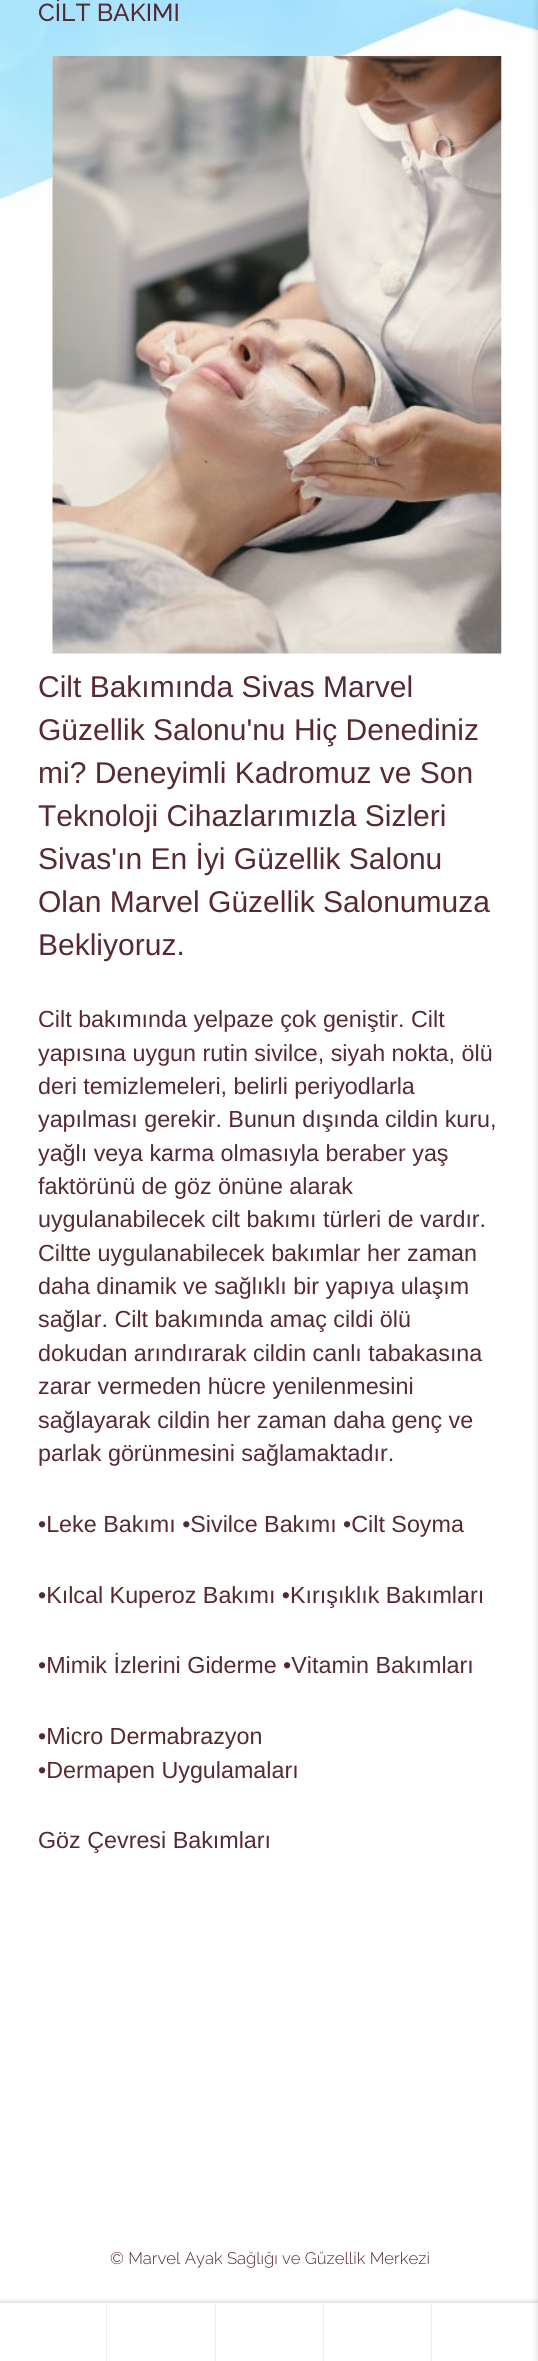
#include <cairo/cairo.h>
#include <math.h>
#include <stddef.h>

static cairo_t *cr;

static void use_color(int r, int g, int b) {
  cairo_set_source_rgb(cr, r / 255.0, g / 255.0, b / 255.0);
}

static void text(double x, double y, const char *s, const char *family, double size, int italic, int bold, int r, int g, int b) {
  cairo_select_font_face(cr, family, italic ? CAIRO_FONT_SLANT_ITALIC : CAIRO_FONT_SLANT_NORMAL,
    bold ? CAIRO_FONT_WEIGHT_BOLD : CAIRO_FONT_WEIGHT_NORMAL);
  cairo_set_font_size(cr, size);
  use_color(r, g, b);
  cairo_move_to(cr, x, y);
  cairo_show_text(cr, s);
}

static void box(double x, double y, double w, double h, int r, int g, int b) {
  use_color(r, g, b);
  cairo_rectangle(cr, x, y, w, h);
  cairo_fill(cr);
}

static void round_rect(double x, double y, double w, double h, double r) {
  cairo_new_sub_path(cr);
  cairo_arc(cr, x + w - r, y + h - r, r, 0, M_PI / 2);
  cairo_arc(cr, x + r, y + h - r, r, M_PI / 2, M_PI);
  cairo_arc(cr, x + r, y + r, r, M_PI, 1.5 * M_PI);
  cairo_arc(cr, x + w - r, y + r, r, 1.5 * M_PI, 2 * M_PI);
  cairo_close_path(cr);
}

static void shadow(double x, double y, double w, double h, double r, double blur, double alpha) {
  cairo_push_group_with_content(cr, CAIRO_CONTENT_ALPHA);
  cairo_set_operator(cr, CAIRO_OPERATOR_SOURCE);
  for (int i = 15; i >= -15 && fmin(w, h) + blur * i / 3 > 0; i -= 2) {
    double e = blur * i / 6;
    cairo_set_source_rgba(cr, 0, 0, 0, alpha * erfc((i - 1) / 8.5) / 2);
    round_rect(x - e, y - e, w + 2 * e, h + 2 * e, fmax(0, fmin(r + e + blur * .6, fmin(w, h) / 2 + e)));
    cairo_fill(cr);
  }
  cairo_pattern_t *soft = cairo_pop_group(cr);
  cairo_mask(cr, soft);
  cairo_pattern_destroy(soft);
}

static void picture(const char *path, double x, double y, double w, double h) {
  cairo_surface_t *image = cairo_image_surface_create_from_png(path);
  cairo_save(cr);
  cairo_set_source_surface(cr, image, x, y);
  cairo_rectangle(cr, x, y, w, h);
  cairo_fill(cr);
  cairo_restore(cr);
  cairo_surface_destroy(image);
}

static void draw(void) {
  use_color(255, 255, 255);
  cairo_paint(cr);
  picture("img_01.png", 0, 0, 538, 211);
  picture("img_02.png", 52, 56, 450, 598);
  cairo_save(cr);
  cairo_rectangle(cr, 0, 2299, 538, 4);
  cairo_clip(cr);
  use_color(0, 0, 0);
  shadow(0, 2303, 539, 58, 0, 3, 0.25);
  cairo_restore(cr);
  box(106, 2303, 1, 58, 238, 238, 238);
  box(215, 2303, 1, 58, 238, 238, 238);
  box(323, 2303, 1, 58, 238, 238, 238);
  box(431, 2303, 1, 58, 238, 238, 238);
  use_color(0, 0, 0);
  shadow(536, 0, 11, 2361, 0, 3, 0.1);
  text(38, 21, "CİLT BAKIMI", "Raleway Medium", 24.5, 0, 0, 87, 42, 50);
  text(38, 697, "Cilt Bakımında Sivas Marvel", "Liberation Sans", 30, 0, 0, 87, 42, 50);
  text(38, 740, "Güzellik Salonu'nu Hiç Denediniz", "Liberation Sans", 30, 0, 0, 87, 42, 50);
  text(38, 783, "mi? Deneyimli Kadromuz ve Son", "Liberation Sans", 30, 0, 0, 87, 42, 50);
  text(38, 826, "Teknoloji Cihazlarımızla Sizleri", "Liberation Sans", 30, 0, 0, 87, 42, 50);
  text(38, 869, "Sivas'ın En İyi Güzellik Salonu", "Liberation Sans", 30, 0, 0, 87, 42, 50);
  text(38, 912, "Olan Marvel Güzellik Salonumuza", "Liberation Sans", 30, 0, 0, 87, 42, 50);
  text(38, 955, "Bekliyoruz.", "Liberation Sans", 30, 0, 0, 87, 42, 50);
  text(38, 1027, "Cilt bakımında yelpaze çok geniştir. Cilt", "Liberation Sans", 23.3, 0, 0, 87, 42, 50);
  text(38, 1061, "yapısına uygun rutin sivilce, siyah nokta, ölü", "Liberation Sans", 23.3, 0, 0, 87, 42, 50);
  text(38, 1094, "deri temizlemeleri, belirli periyodlarla", "Liberation Sans", 23.3, 0, 0, 87, 42, 50);
  text(38, 1127, "yapılması gerekir. Bunun dışında cildin kuru,", "Liberation Sans", 23.3, 0, 0, 87, 42, 50);
  text(38, 1161, "yağlı veya karma olmasıyla beraber yaş", "Liberation Sans", 23.3, 0, 0, 87, 42, 50);
  text(38, 1194, "faktörünü de göz önüne alarak", "Liberation Sans", 23.3, 0, 0, 87, 42, 50);
  text(38, 1227, "uygulanabilecek cilt bakımı türleri de vardır.", "Liberation Sans", 23.3, 0, 0, 87, 42, 50);
  text(38, 1261, "Ciltte uygulanabilecek bakımlar her zaman", "Liberation Sans", 23.3, 0, 0, 87, 42, 50);
  text(38, 1294, "daha dinamik ve sağlıklı bir yapıya ulaşım", "Liberation Sans", 23.3, 0, 0, 87, 42, 50);
  text(38, 1327, "sağlar. Cilt bakımında amaç cildi ölü", "Liberation Sans", 23.3, 0, 0, 87, 42, 50);
  text(38, 1361, "dokudan arındırarak cildin canlı tabakasına", "Liberation Sans", 23.3, 0, 0, 87, 42, 50);
  text(38, 1394, "zarar vermeden hücre yenilenmesini", "Liberation Sans", 23.3, 0, 0, 87, 42, 50);
  text(38, 1428, "sağlayarak cildin her zaman daha genç ve", "Liberation Sans", 23.3, 0, 0, 87, 42, 50);
  text(38, 1461, "parlak görünmesini sağlamaktadır.", "Liberation Sans", 23.3, 0, 0, 87, 42, 50);
  text(38, 1532, "•Leke Bakımı •Sivilce Bakımı •Cilt Soyma", "Liberation Sans", 23.3, 0, 0, 87, 42, 50);
  text(38, 1603, "•Kılcal Kuperoz Bakımı •Kırışıklık Bakımları", "Liberation Sans", 23.3, 0, 0, 87, 42, 50);
  text(38, 1673, "•Mimik İzlerini Giderme •Vitamin Bakımları", "Liberation Sans", 23.3, 0, 0, 87, 42, 50);
  text(38, 1744, "•Micro Dermabrazyon", "Liberation Sans", 23.3, 0, 0, 87, 42, 50);
  text(38, 1778, "•Dermapen Uygulamaları", "Liberation Sans", 23.3, 0, 0, 87, 42, 50);
  text(38, 1848, "Göz Çevresi Bakımları", "Liberation Sans", 23.3, 0, 0, 87, 42, 50);
  text(110, 2264, "© Marvel Ayak Sağlığı ve Güzellik Merkezi", "Raleway Light", 16.7, 0, 0, 87, 42, 50);
}

int main(void) {
  cairo_surface_t *surface = cairo_image_surface_create(CAIRO_FORMAT_RGB24, 538, 2361);
  cr = cairo_create(surface);
  cairo_font_options_t *options = cairo_font_options_create();
  cairo_font_options_set_hint_metrics(options, CAIRO_HINT_METRICS_OFF);
  cairo_font_options_set_hint_style(options, CAIRO_HINT_STYLE_NONE);
  cairo_set_font_options(cr, options);
  cairo_set_miter_limit(cr, 4);
  draw();
  cairo_surface_write_to_png(surface, "out.png");
  cairo_font_options_destroy(options);
  cairo_destroy(cr);
  cairo_surface_destroy(surface);
  return 0;
}
